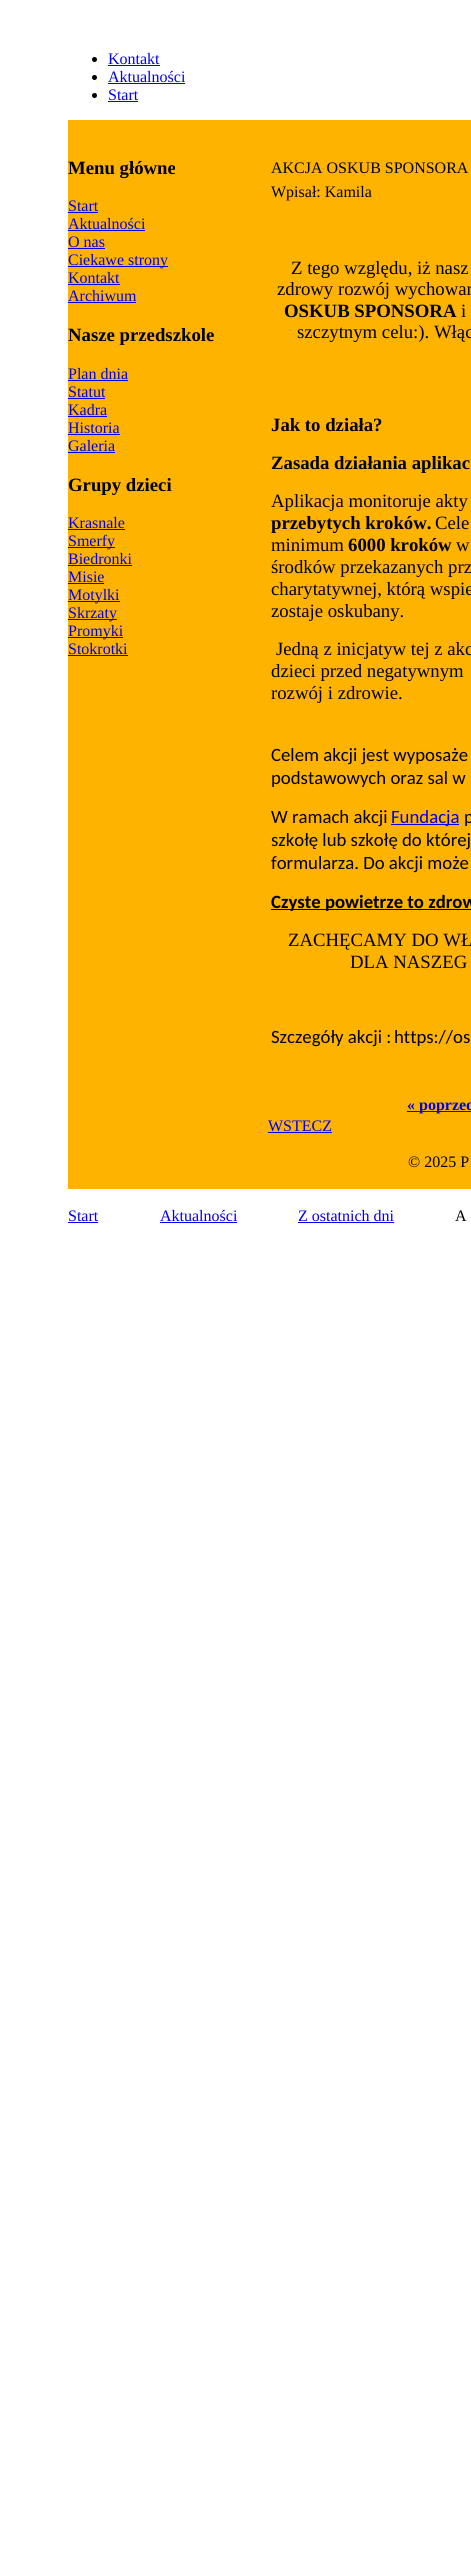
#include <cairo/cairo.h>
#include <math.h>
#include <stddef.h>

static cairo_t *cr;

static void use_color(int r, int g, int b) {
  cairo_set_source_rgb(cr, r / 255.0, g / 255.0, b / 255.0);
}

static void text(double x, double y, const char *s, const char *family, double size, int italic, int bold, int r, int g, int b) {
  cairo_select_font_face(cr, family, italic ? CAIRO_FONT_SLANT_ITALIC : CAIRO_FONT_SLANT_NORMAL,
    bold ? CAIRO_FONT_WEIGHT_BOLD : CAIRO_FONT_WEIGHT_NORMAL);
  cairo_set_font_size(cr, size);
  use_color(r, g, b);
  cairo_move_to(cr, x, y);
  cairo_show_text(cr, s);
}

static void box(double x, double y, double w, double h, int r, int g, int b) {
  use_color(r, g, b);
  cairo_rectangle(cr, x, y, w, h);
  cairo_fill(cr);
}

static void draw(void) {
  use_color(255, 255, 255);
  cairo_paint(cr);
  use_color(0, 0, 0);
  cairo_arc(cr, 94.5, 59.5, 2.5, 0, 2 * M_PI);
  cairo_fill(cr);
  box(108, 65, 52, 1, 0, 0, 238);
  use_color(0, 0, 0);
  cairo_arc(cr, 94.5, 77.5, 2.5, 0, 2 * M_PI);
  cairo_fill(cr);
  box(108, 83, 77, 1, 0, 0, 238);
  use_color(0, 0, 0);
  cairo_arc(cr, 94.5, 95.5, 2.5, 0, 2 * M_PI);
  cairo_fill(cr);
  box(108, 101, 30, 1, 0, 0, 238);
  box(68, 120, 403, 1069, 255, 179, 1);
  box(68, 212, 30, 1, 0, 0, 238);
  box(68, 230, 77, 1, 0, 0, 238);
  box(68, 248, 37, 1, 0, 0, 238);
  box(68, 266, 100, 1, 0, 0, 238);
  box(68, 284, 52, 1, 0, 0, 238);
  box(68, 302, 68, 1, 0, 0, 238);
  box(68, 380, 60, 1, 0, 0, 238);
  box(68, 398, 37, 1, 0, 0, 238);
  box(68, 416, 39, 1, 0, 0, 238);
  box(68, 434, 52, 1, 0, 0, 238);
  box(68, 452, 47, 1, 0, 0, 238);
  box(68, 529, 57, 1, 0, 0, 238);
  box(68, 547, 47, 1, 0, 0, 238);
  box(68, 565, 64, 1, 0, 0, 238);
  box(68, 583, 36, 1, 0, 0, 238);
  box(68, 601, 52, 1, 0, 0, 238);
  box(68, 619, 49, 1, 0, 0, 238);
  box(68, 637, 55, 1, 0, 0, 238);
  box(68, 655, 60, 1, 0, 0, 238);
  box(391, 824, 68, 1, 0, 0, 238);
  box(271, 909, 200, 1, 0, 0, 0);
  box(407, 1111, 64, 1, 0, 0, 238);
  box(268, 1132, 64, 1, 0, 0, 238);
  box(68, 1222, 30, 1, 0, 0, 238);
  box(160, 1222, 77, 1, 0, 0, 238);
  box(298, 1222, 96, 1, 0, 0, 238);
  text(108, 64, "Kontakt", "Liberation Serif", 16, 0, 0, 0, 0, 238);
  text(108, 82, "Aktualności", "Liberation Serif", 16, 0, 0, 0, 0, 238);
  text(108, 100, "Start", "Liberation Serif", 16, 0, 0, 0, 0, 238);
  text(68, 174, "Menu główne", "Liberation Serif", 18.75, 0, 1, 0, 0, 0);
  text(68, 211, "Start", "Liberation Serif", 16, 0, 0, 0, 0, 238);
  text(68, 229, "Aktualności", "Liberation Serif", 16, 0, 0, 0, 0, 238);
  text(68, 247, "O nas", "Liberation Serif", 16, 0, 0, 0, 0, 238);
  text(68, 265, "Ciekawe strony", "Liberation Serif", 16, 0, 0, 0, 0, 238);
  text(68, 283, "Kontakt", "Liberation Serif", 16, 0, 0, 0, 0, 238);
  text(68, 301, "Archiwum", "Liberation Serif", 16, 0, 0, 0, 0, 238);
  text(68, 341, "Nasze przedszkole", "Liberation Serif", 18.75, 0, 1, 0, 0, 0);
  text(68, 379, "Plan dnia", "Liberation Serif", 16, 0, 0, 0, 0, 238);
  text(68, 397, "Statut", "Liberation Serif", 16, 0, 0, 0, 0, 238);
  text(68, 415, "Kadra", "Liberation Serif", 16, 0, 0, 0, 0, 238);
  text(68, 433, "Historia", "Liberation Serif", 16, 0, 0, 0, 0, 238);
  text(68, 451, "Galeria", "Liberation Serif", 16, 0, 0, 0, 0, 238);
  text(68, 491, "Grupy dzieci", "Liberation Serif", 18.75, 0, 1, 0, 0, 0);
  text(68, 528, "Krasnale", "Liberation Serif", 16, 0, 0, 0, 0, 238);
  text(68, 546, "Smerfy", "Liberation Serif", 16, 0, 0, 0, 0, 238);
  text(68, 564, "Biedronki", "Liberation Serif", 16, 0, 0, 0, 0, 238);
  text(68, 582, "Misie", "Liberation Serif", 16, 0, 0, 0, 0, 238);
  text(68, 600, "Motylki", "Liberation Serif", 16, 0, 0, 0, 0, 238);
  text(68, 618, "Skrzaty", "Liberation Serif", 16, 0, 0, 0, 0, 238);
  text(68, 636, "Promyki", "Liberation Serif", 16, 0, 0, 0, 0, 238);
  text(68, 654, "Stokrotki", "Liberation Serif", 16, 0, 0, 0, 0, 238);
  text(271, 173, "AKCJA OSKUB SPONSORA", "Liberation Serif", 16, 0, 0, 0, 0, 0);
  text(271, 197, "Wpisał: Kamila", "Liberation Serif", 16, 0, 0, 0, 0, 0);
  text(291, 274, "Z tego względu, iż nasz", "Liberation Serif", 18.75, 0, 0, 0, 0, 0);
  text(277, 295, "zdrowy rozwój wychowan", "Liberation Serif", 18.75, 0, 0, 0, 0, 0);
  text(284, 317, "OSKUB SPONSORA", "Liberation Serif", 18.75, 0, 1, 0, 0, 0);
  text(461, 317, "i", "Liberation Serif", 18.75, 0, 0, 0, 0, 0);
  text(297, 338, "szczytnym celu:). Włąc", "Liberation Serif", 18.75, 0, 0, 0, 0, 0);
  text(271, 431, "Jak to działa?", "Liberation Serif", 18.75, 0, 1, 0, 0, 0);
  text(271, 469, "Zasada działania aplikac", "Liberation Serif", 18.75, 0, 1, 0, 0, 0);
  text(271, 507, "Aplikacja monitoruje akty", "Liberation Serif", 18.75, 0, 0, 0, 0, 0);
  text(271, 529, "przebytych kroków.", "Liberation Serif", 18.75, 0, 1, 0, 0, 0);
  text(435, 529, "Cele", "Liberation Serif", 18.75, 0, 0, 0, 0, 0);
  text(271, 551, "minimum", "Liberation Serif", 18.75, 0, 0, 0, 0, 0);
  text(348, 551, "6000 kroków", "Liberation Serif", 18.75, 0, 1, 0, 0, 0);
  text(456, 551, "w", "Liberation Serif", 18.75, 0, 0, 0, 0, 0);
  text(271, 573, "środków przekazanych prz", "Liberation Serif", 18.75, 0, 0, 0, 0, 0);
  text(271, 595, "charytatywnej, którą wspie", "Liberation Serif", 18.75, 0, 0, 0, 0, 0);
  text(271, 617, "zostaje oskubany.", "Liberation Serif", 18.75, 0, 0, 0, 0, 0);
  text(276, 655, "Jedną z inicjatyw tej z akc", "Liberation Serif", 18.75, 0, 0, 0, 0, 0);
  text(271, 677, "dzieci przed negatywnym", "Liberation Serif", 18.75, 0, 0, 0, 0, 0);
  text(271, 699, "rozwój i zdrowie.", "Liberation Serif", 18.75, 0, 0, 0, 0, 0);
  text(271, 761, "Celem akcji jest wyposaże", "Carlito", 18.75, 0, 0, 0, 0, 0);
  text(271, 784, "podstawowych oraz sal w", "Carlito", 18.75, 0, 0, 0, 0, 0);
  text(271, 823, "W ramach akcji", "Carlito", 18.75, 0, 0, 0, 0, 0);
  text(391, 823, "Fundacja", "Carlito", 18.75, 0, 0, 0, 0, 238);
  text(464, 823, "p", "Carlito", 18.75, 0, 0, 0, 0, 0);
  text(271, 846, "szkołę lub szkołę do której", "Carlito", 18.75, 0, 0, 0, 0, 0);
  text(271, 869, "formularza. Do akcji może", "Carlito", 18.75, 0, 0, 0, 0, 0);
  text(271, 908, "Czyste powietrze to zdrow", "Carlito", 18.75, 0, 1, 0, 0, 0);
  text(288, 946, "ZACHĘCAMY DO WŁ", "Liberation Serif", 18.75, 0, 0, 0, 0, 0);
  text(350, 968, "DLA NASZEG", "Liberation Serif", 18.75, 0, 0, 0, 0, 0);
  text(271, 1043, "Szczegóły akcji :", "Carlito", 18.75, 0, 0, 0, 0, 0);
  text(394, 1043, "https://os", "Carlito", 18.75, 0, 0, 0, 0, 0);
  text(407, 1110, "« poprzed", "Liberation Serif", 16, 0, 1, 0, 0, 238);
  text(268, 1131, "WSTECZ", "Liberation Serif", 16, 0, 0, 0, 0, 238);
  text(408, 1167, "© 2025 P", "Liberation Serif", 16, 0, 0, 0, 0, 0);
  text(68, 1221, "Start", "Liberation Serif", 16, 0, 0, 0, 0, 238);
  text(160, 1221, "Aktualności", "Liberation Serif", 16, 0, 0, 0, 0, 238);
  text(298, 1221, "Z ostatnich dni", "Liberation Serif", 16, 0, 0, 0, 0, 238);
  text(455, 1221, "A", "Liberation Serif", 16, 0, 0, 0, 0, 0);
}

int main(void) {
  cairo_surface_t *surface = cairo_image_surface_create(CAIRO_FORMAT_RGB24, 471, 2574);
  cr = cairo_create(surface);
  cairo_font_options_t *options = cairo_font_options_create();
  cairo_font_options_set_hint_metrics(options, CAIRO_HINT_METRICS_OFF);
  cairo_font_options_set_hint_style(options, CAIRO_HINT_STYLE_NONE);
  cairo_set_font_options(cr, options);
  cairo_set_miter_limit(cr, 4);
  draw();
  cairo_surface_write_to_png(surface, "out.png");
  cairo_font_options_destroy(options);
  cairo_destroy(cr);
  cairo_surface_destroy(surface);
  return 0;
}
